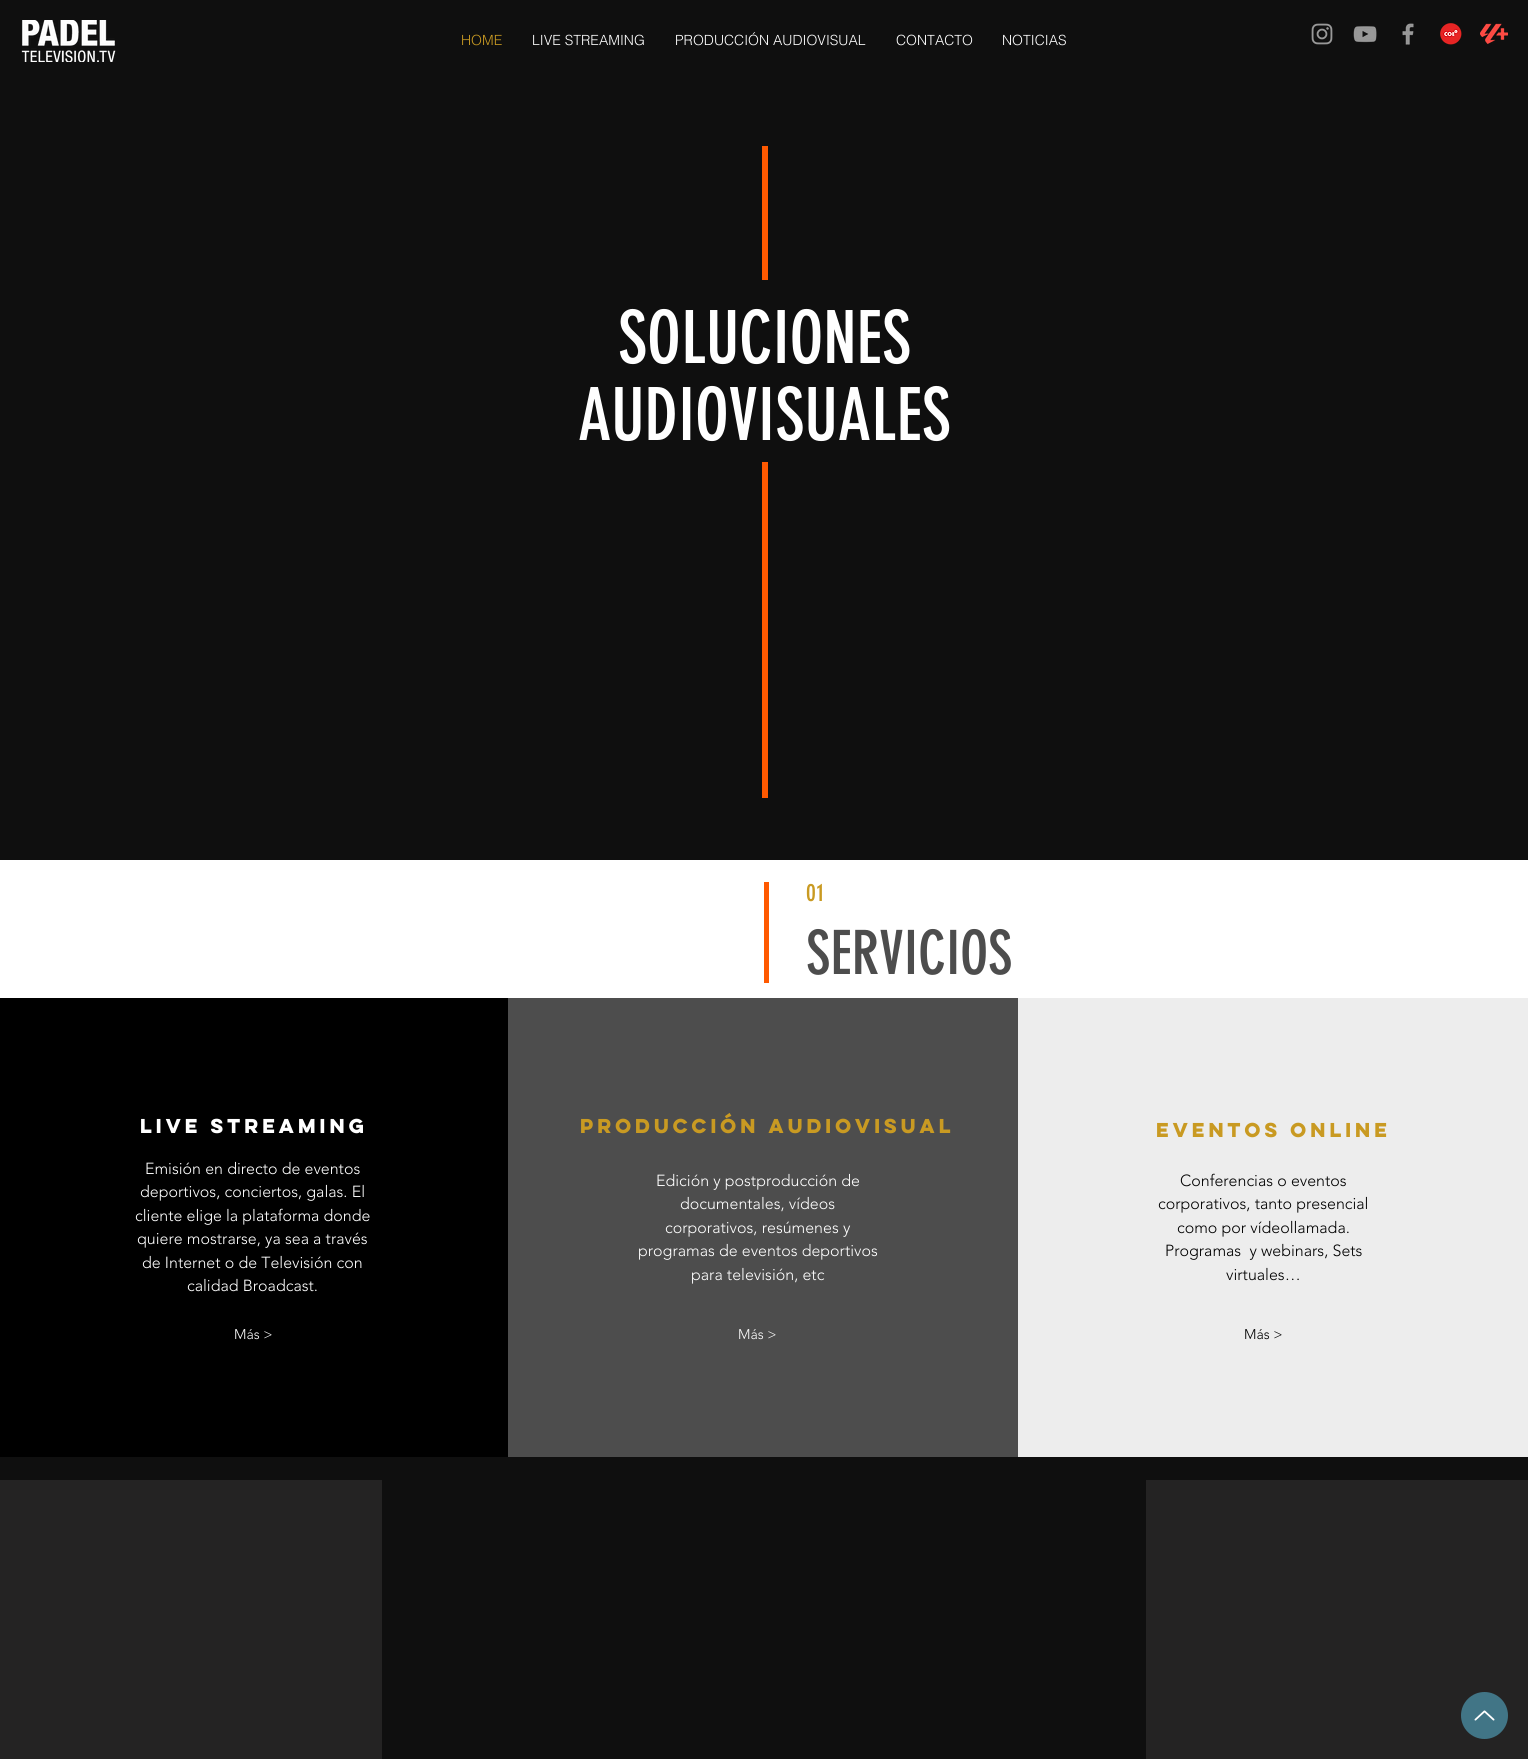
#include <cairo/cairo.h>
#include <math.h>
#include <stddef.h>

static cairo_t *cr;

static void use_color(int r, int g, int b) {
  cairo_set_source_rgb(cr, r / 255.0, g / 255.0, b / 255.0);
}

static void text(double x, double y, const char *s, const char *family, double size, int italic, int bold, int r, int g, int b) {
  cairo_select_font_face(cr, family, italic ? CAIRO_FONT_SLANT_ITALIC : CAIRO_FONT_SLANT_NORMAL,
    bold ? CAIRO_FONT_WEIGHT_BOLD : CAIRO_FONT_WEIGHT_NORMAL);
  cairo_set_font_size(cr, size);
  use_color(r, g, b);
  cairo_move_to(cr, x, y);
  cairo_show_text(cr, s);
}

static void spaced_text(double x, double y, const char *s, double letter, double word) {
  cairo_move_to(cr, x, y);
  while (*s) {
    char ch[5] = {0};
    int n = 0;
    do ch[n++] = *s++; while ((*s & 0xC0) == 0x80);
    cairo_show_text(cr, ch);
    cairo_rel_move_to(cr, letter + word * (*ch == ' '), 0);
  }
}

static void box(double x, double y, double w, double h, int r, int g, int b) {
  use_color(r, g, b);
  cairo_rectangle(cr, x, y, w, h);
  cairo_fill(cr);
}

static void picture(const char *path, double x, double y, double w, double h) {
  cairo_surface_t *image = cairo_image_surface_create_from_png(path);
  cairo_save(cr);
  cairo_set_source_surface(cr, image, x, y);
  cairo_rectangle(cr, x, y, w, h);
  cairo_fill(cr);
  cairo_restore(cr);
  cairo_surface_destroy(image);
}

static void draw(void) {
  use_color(15, 15, 15);
  cairo_paint(cr);
  picture("img_01.png", 21, 20, 95, 42);
  picture("img_02.png", 1311, 23, 22, 22);
  picture("img_03.png", 1353, 26, 24, 17);
  picture("img_04.png", 1402, 23, 12, 22);
  picture("img_05.png", 1440, 23, 22, 22);
  picture("img_06.png", 1480, 23, 28, 21);
  box(762, 146, 6, 134, 255, 89, 0);
  box(762, 462, 6, 336, 255, 89, 0);
  box(0, 860, 1528, 138, 255, 255, 255);
  box(764, 882, 5, 101, 255, 89, 0);
  box(0, 998, 508, 459, 0, 0, 0);
  box(508, 998, 510, 459, 77, 77, 77);
  box(1018, 998, 510, 459, 237, 237, 237);
  box(0, 1480, 382, 279, 36, 35, 35);
  box(1146, 1480, 382, 279, 36, 35, 35);
  use_color(65, 117, 134);
  cairo_arc(cr, 1484.5, 1715.5, 23.5, 0, 2 * M_PI);
  cairo_fill(cr);
  picture("img_07.png", 1474, 1710, 21, 11);
  text(461, 45, "HOME", "helvetica Light", 14, 0, 0, 201, 154, 34);
  text(532, 45, "LIVE STREAMING", "helvetica Light", 14, 0, 0, 255, 255, 255);
  text(675, 45, "PRODUCCIÓN AUDIOVISUAL", "helvetica Light", 14, 0, 0, 255, 255, 255);
  text(896, 45, "CONTACTO", "helvetica Light", 14, 0, 0, 255, 255, 255);
  text(1002, 45, "NOTICIAS", "helvetica Light", 14, 0, 0, 255, 255, 255);
  text(618, 363, "SOLUCIONES", "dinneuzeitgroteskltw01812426", 72, 0, 0, 255, 255, 255);
  text(578, 440, "AUDIOVISUALES", "dinneuzeitgroteskltw01812426", 72, 0, 0, 255, 255, 255);
  cairo_set_font_size(cr, 24);
  use_color(201, 154, 34);
  spaced_text(806, 901, "01", 1, 0);
  text(806, 974, "SERVICIOS", "dinneuzeitgroteskltw01812426", 60, 0, 0, 77, 77, 77);
  text(140, 1133, "Live STREAMING", "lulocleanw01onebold", 18, 0, 1, 255, 255, 255);
  text(145, 1174, "Emisión en directo de eventos", "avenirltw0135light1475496 Light", 16, 0, 0, 255, 255, 255);
  text(140, 1197, "deportivos, conciertos, galas. El", "avenirltw0135light1475496 Light", 16, 0, 0, 255, 255, 255);
  text(135, 1221, "cliente elige la plataforma donde", "avenirltw0135light1475496 Light", 16, 0, 0, 255, 255, 255);
  text(137, 1244, "quiere mostrarse, ya sea a través", "avenirltw0135light1475496 Light", 16, 0, 0, 255, 255, 255);
  text(142, 1268, "de Internet o de Televisión con", "avenirltw0135light1475496 Light", 16, 0, 0, 255, 255, 255);
  text(187, 1291, "calidad Broadcast.", "avenirltw0135light1475496 Light", 16, 0, 0, 255, 255, 255);
  text(234, 1339, "Más >", "avenirltw0135light1475496 Light", 14, 0, 0, 255, 255, 255);
  text(580, 1133, "producción audiOvisual", "lulocleanw01onebold", 18, 0, 1, 201, 154, 34);
  text(656, 1186, "Edición y postproducción de", "avenirltw0135light1475496 Light", 16, 0, 0, 255, 255, 255);
  text(680, 1209, "documentales, vídeos", "avenirltw0135light1475496 Light", 16, 0, 0, 255, 255, 255);
  text(665, 1233, "corporativos, resúmenes y", "avenirltw0135light1475496 Light", 16, 0, 0, 255, 255, 255);
  text(638, 1256, "programas de eventos deportivos", "avenirltw0135light1475496 Light", 16, 0, 0, 255, 255, 255);
  text(691, 1280, "para televisión, etc", "avenirltw0135light1475496 Light", 16, 0, 0, 255, 255, 255);
  text(738, 1339, "Más >", "avenirltw0135light1475496 Light", 14, 0, 0, 255, 255, 255);
  text(1156, 1137, "eventos online", "lulocleanw01onebold", 18, 0, 1, 201, 154, 34);
  text(1180, 1186, "Conferencias o eventos", "avenirltw0135light1475496 Light", 16, 0, 0, 0, 0, 0);
  text(1158, 1209, "corporativos, tanto presencial", "avenirltw0135light1475496 Light", 16, 0, 0, 0, 0, 0);
  text(1177, 1233, "como por vídeollamada.", "avenirltw0135light1475496 Light", 16, 0, 0, 0, 0, 0);
  text(1165, 1256, "Programas  y webinars, Sets", "avenirltw0135light1475496 Light", 16, 0, 0, 0, 0, 0);
  text(1226, 1280, "virtuales…", "avenirltw0135light1475496 Light", 16, 0, 0, 0, 0, 0);
  text(1244, 1339, "Más >", "avenirltw0135light1475496 Light", 14, 0, 0, 0, 0, 0);
}

int main(void) {
  cairo_surface_t *surface = cairo_image_surface_create(CAIRO_FORMAT_RGB24, 1528, 1759);
  cr = cairo_create(surface);
  cairo_font_options_t *options = cairo_font_options_create();
  cairo_font_options_set_hint_metrics(options, CAIRO_HINT_METRICS_OFF);
  cairo_font_options_set_hint_style(options, CAIRO_HINT_STYLE_NONE);
  cairo_set_font_options(cr, options);
  cairo_set_miter_limit(cr, 4);
  draw();
  cairo_surface_write_to_png(surface, "out.png");
  cairo_font_options_destroy(options);
  cairo_destroy(cr);
  cairo_surface_destroy(surface);
  return 0;
}
